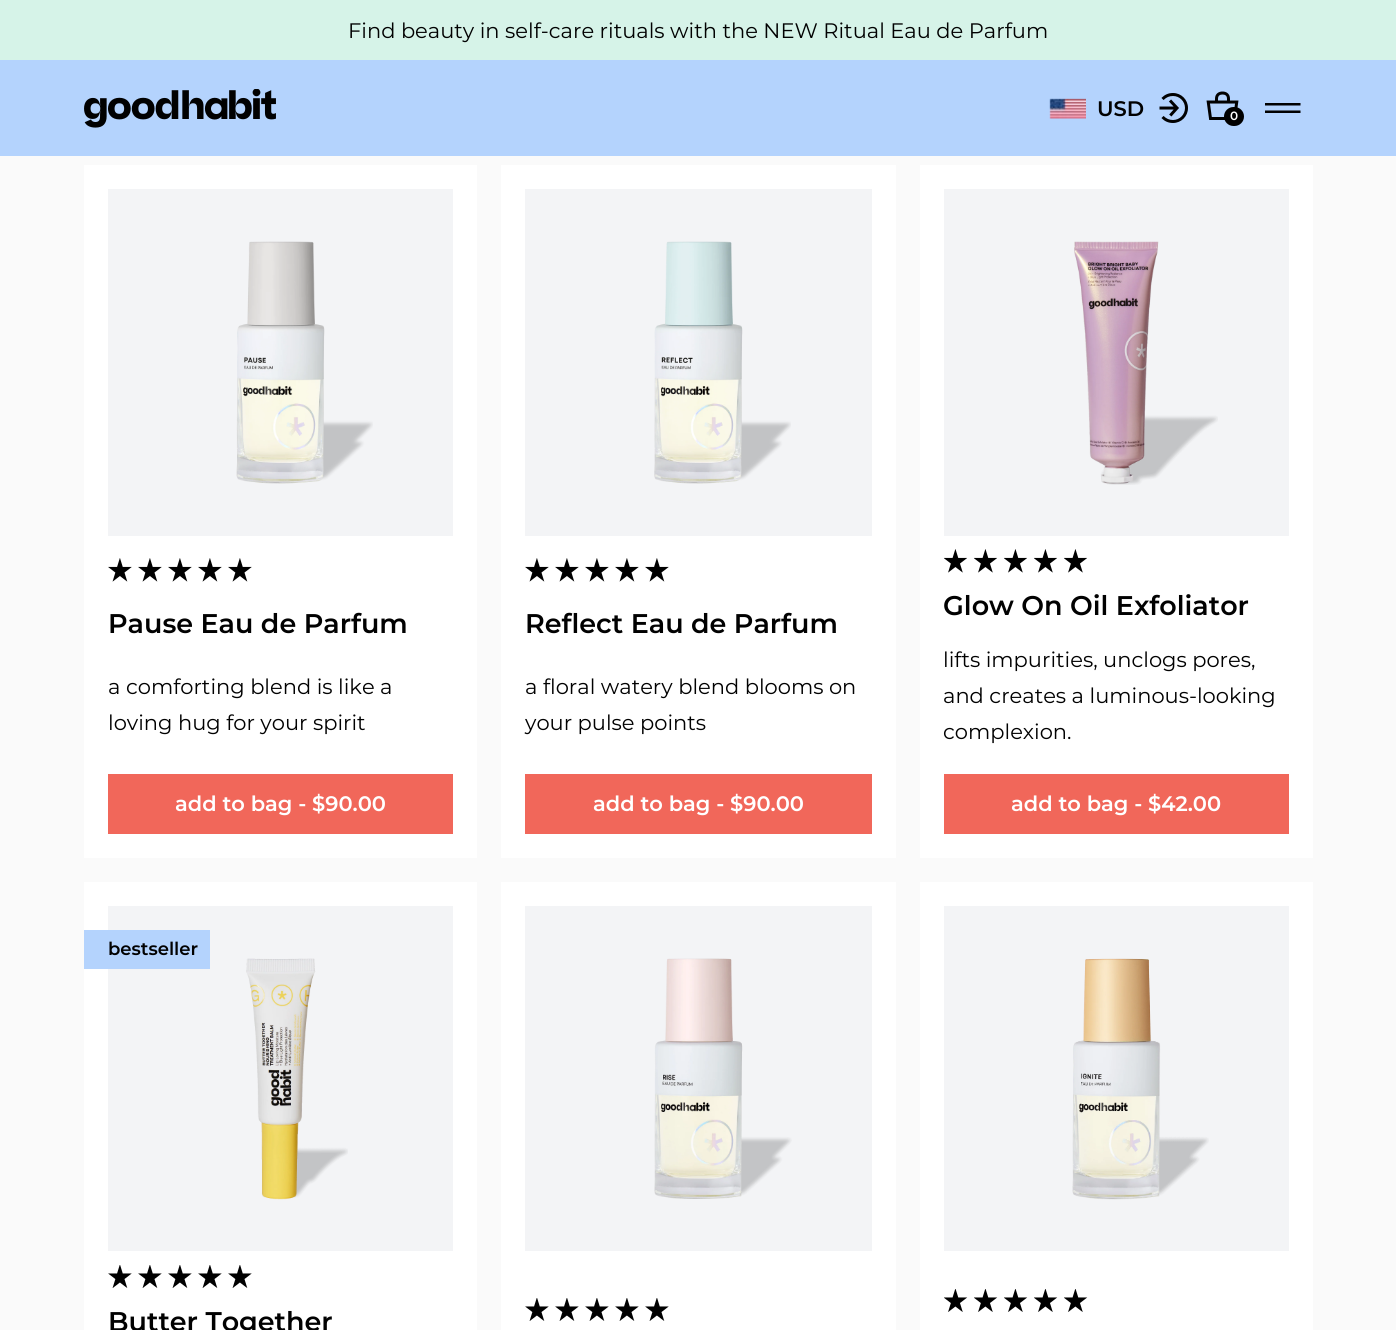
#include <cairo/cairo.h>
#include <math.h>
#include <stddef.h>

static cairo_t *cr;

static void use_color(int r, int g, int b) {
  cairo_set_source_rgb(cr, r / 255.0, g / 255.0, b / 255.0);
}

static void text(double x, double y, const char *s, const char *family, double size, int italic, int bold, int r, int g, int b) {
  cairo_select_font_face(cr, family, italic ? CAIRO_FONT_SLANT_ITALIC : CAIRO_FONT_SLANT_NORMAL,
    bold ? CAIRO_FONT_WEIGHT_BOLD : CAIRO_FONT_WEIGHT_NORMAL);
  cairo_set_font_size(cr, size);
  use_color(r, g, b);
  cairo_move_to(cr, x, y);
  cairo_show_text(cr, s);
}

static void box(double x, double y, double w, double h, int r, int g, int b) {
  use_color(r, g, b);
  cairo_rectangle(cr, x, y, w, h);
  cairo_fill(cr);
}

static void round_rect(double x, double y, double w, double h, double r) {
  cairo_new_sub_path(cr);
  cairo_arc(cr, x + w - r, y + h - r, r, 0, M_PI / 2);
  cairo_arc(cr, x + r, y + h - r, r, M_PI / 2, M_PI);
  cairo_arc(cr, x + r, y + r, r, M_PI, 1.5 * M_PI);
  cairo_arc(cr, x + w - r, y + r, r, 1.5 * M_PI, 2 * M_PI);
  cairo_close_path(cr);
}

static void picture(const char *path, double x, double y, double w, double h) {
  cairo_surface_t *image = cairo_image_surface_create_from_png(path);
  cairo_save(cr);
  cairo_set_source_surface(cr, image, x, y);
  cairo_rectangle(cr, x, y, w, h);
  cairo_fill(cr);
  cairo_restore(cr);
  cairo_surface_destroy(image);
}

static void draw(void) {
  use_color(250, 250, 250);
  cairo_paint(cr);
  box(0, 60, 1396, 96, 180, 211, 253);
  box(0, 0, 1396, 60, 214, 243, 232);
  picture("img_01.png", 84, 89, 192, 39);
  picture("img_02.png", 1049, 98, 37, 21);
  picture("img_03.png", 1159, 93, 29, 30);
  cairo_save(cr);
  cairo_rectangle(cr, 1265, 90, 36, 36);
  cairo_clip(cr);
  use_color(1, 1, 1);
  cairo_set_fill_rule(cr, CAIRO_FILL_RULE_EVEN_ODD);
  cairo_new_path(cr);
  cairo_move_to(cr, 1300.5, 103);
  cairo_line_to(cr, 1264.5, 103);
  cairo_line_to(cr, 1264.5, 105.5);
  cairo_line_to(cr, 1300.5, 105.5);
  cairo_close_path(cr);
  cairo_move_to(cr, 1300.5, 110.5);
  cairo_line_to(cr, 1264.5, 110.5);
  cairo_line_to(cr, 1264.5, 113);
  cairo_line_to(cr, 1300.5, 113);
  cairo_close_path(cr);
  cairo_fill(cr);
  cairo_restore(cr);
  picture("img_04.png", 1206, 91, 33, 29);
  use_color(0, 0, 0);
  round_rect(1224, 107, 20, 19, 9.5);
  cairo_fill(cr);
  box(84, 165, 393, 693, 255, 255, 255);
  box(108, 189, 345, 347, 243, 244, 246);
  picture("img_05.png", 236, 241, 137, 243);
  picture("img_06.png", 108, 558, 24, 24);
  picture("img_06.png", 138, 558, 24, 24);
  picture("img_06.png", 168, 558, 24, 24);
  picture("img_06.png", 198, 558, 24, 24);
  picture("img_06.png", 228, 558, 24, 24);
  box(108, 774, 345, 60, 241, 103, 90);
  box(501, 165, 395, 693, 255, 255, 255);
  box(525, 189, 347, 347, 243, 244, 246);
  picture("img_07.png", 654, 241, 137, 243);
  picture("img_06.png", 525, 558, 24, 24);
  picture("img_06.png", 555, 558, 24, 24);
  picture("img_06.png", 585, 558, 24, 24);
  picture("img_06.png", 615, 558, 24, 24);
  picture("img_06.png", 645, 558, 24, 24);
  box(525, 774, 347, 60, 241, 103, 90);
  box(920, 165, 393, 693, 255, 255, 255);
  box(944, 189, 345, 347, 243, 244, 246);
  picture("img_08.png", 1074, 241, 144, 244);
  picture("img_09.png", 944, 549, 23, 24);
  picture("img_09.png", 974, 549, 23, 24);
  picture("img_09.png", 1004, 549, 23, 24);
  picture("img_09.png", 1034, 549, 23, 24);
  picture("img_09.png", 1064, 549, 23, 24);
  box(944, 774, 345, 60, 241, 103, 90);
  box(84, 882, 393, 448, 255, 255, 255);
  box(108, 906, 345, 345, 243, 244, 246);
  picture("img_10.png", 246, 958, 102, 242);
  box(84, 930, 126, 39, 180, 211, 253);
  picture("img_11.png", 108, 1265, 24, 23);
  picture("img_11.png", 138, 1265, 24, 23);
  picture("img_11.png", 168, 1265, 24, 23);
  picture("img_11.png", 198, 1265, 24, 23);
  picture("img_11.png", 228, 1265, 24, 23);
  box(501, 882, 395, 448, 255, 255, 255);
  box(525, 906, 347, 345, 243, 244, 246);
  picture("img_12.png", 654, 958, 138, 241);
  picture("img_11.png", 525, 1298, 24, 23);
  picture("img_11.png", 555, 1298, 24, 23);
  picture("img_11.png", 585, 1298, 24, 23);
  picture("img_11.png", 615, 1298, 24, 23);
  picture("img_11.png", 645, 1298, 24, 23);
  box(920, 882, 393, 448, 255, 255, 255);
  box(944, 906, 345, 345, 243, 244, 246);
  picture("img_13.png", 1072, 958, 137, 242);
  picture("img_14.png", 944, 1289, 24, 23);
  picture("img_14.png", 974, 1289, 24, 23);
  picture("img_14.png", 1004, 1289, 24, 23);
  picture("img_14.png", 1034, 1289, 24, 23);
  picture("img_14.png", 1064, 1289, 24, 23);
  text(348, 38, "Find beauty in self-care rituals with the NEW Ritual Eau de Parfum", "Montserrat", 21, 0, 0, 1, 1, 1);
  text(1097, 116, "USD", "Montserrat SemiBold", 21, 0, 0, 1, 1, 1);
  text(1230, 120, "0", "Montserrat SemiBold", 12, 0, 0, 255, 255, 255);
  text(108, 633, "Pause Eau de Parfum", "Montserrat SemiBold", 27, 0, 0, 1, 1, 1);
  text(108, 694, "a comforting blend is like a", "Montserrat", 21, 0, 0, 1, 1, 1);
  text(108, 730, "loving hug for your spirit", "Montserrat", 21, 0, 0, 1, 1, 1);
  text(175, 811, "add to bag - $90.00", "Montserrat SemiBold", 21, 0, 0, 255, 255, 255);
  text(525, 633, "Reflect Eau de Parfum", "Montserrat SemiBold", 27, 0, 0, 1, 1, 1);
  text(525, 694, "a floral watery blend blooms on", "Montserrat", 21, 0, 0, 1, 1, 1);
  text(525, 730, "your pulse points", "Montserrat", 21, 0, 0, 1, 1, 1);
  text(593, 811, "add to bag - $90.00", "Montserrat SemiBold", 21, 0, 0, 255, 255, 255);
  text(943, 615, "Glow On Oil Exfoliator", "Montserrat SemiBold", 27, 0, 0, 1, 1, 1);
  text(943, 667, "lifts impurities, unclogs pores,", "Montserrat", 21, 0, 0, 1, 1, 1);
  text(943, 703, "and creates a luminous-looking", "Montserrat", 21, 0, 0, 1, 1, 1);
  text(943, 739, "complexion.", "Montserrat", 21, 0, 0, 1, 1, 1);
  text(1011, 811, "add to bag - $42.00", "Montserrat SemiBold", 21, 0, 0, 255, 255, 255);
  text(108, 955, "bestseller", "Montserrat SemiBold", 18, 0, 0, 1, 1, 1);
  text(108, 1331, "Butter Together", "Montserrat SemiBold", 27, 0, 0, 1, 1, 1);
}

int main(void) {
  cairo_surface_t *surface = cairo_image_surface_create(CAIRO_FORMAT_RGB24, 1396, 1330);
  cr = cairo_create(surface);
  cairo_font_options_t *options = cairo_font_options_create();
  cairo_font_options_set_hint_metrics(options, CAIRO_HINT_METRICS_OFF);
  cairo_font_options_set_hint_style(options, CAIRO_HINT_STYLE_NONE);
  cairo_set_font_options(cr, options);
  cairo_set_miter_limit(cr, 4);
  draw();
  cairo_surface_write_to_png(surface, "out.png");
  cairo_font_options_destroy(options);
  cairo_destroy(cr);
  cairo_surface_destroy(surface);
  return 0;
}
